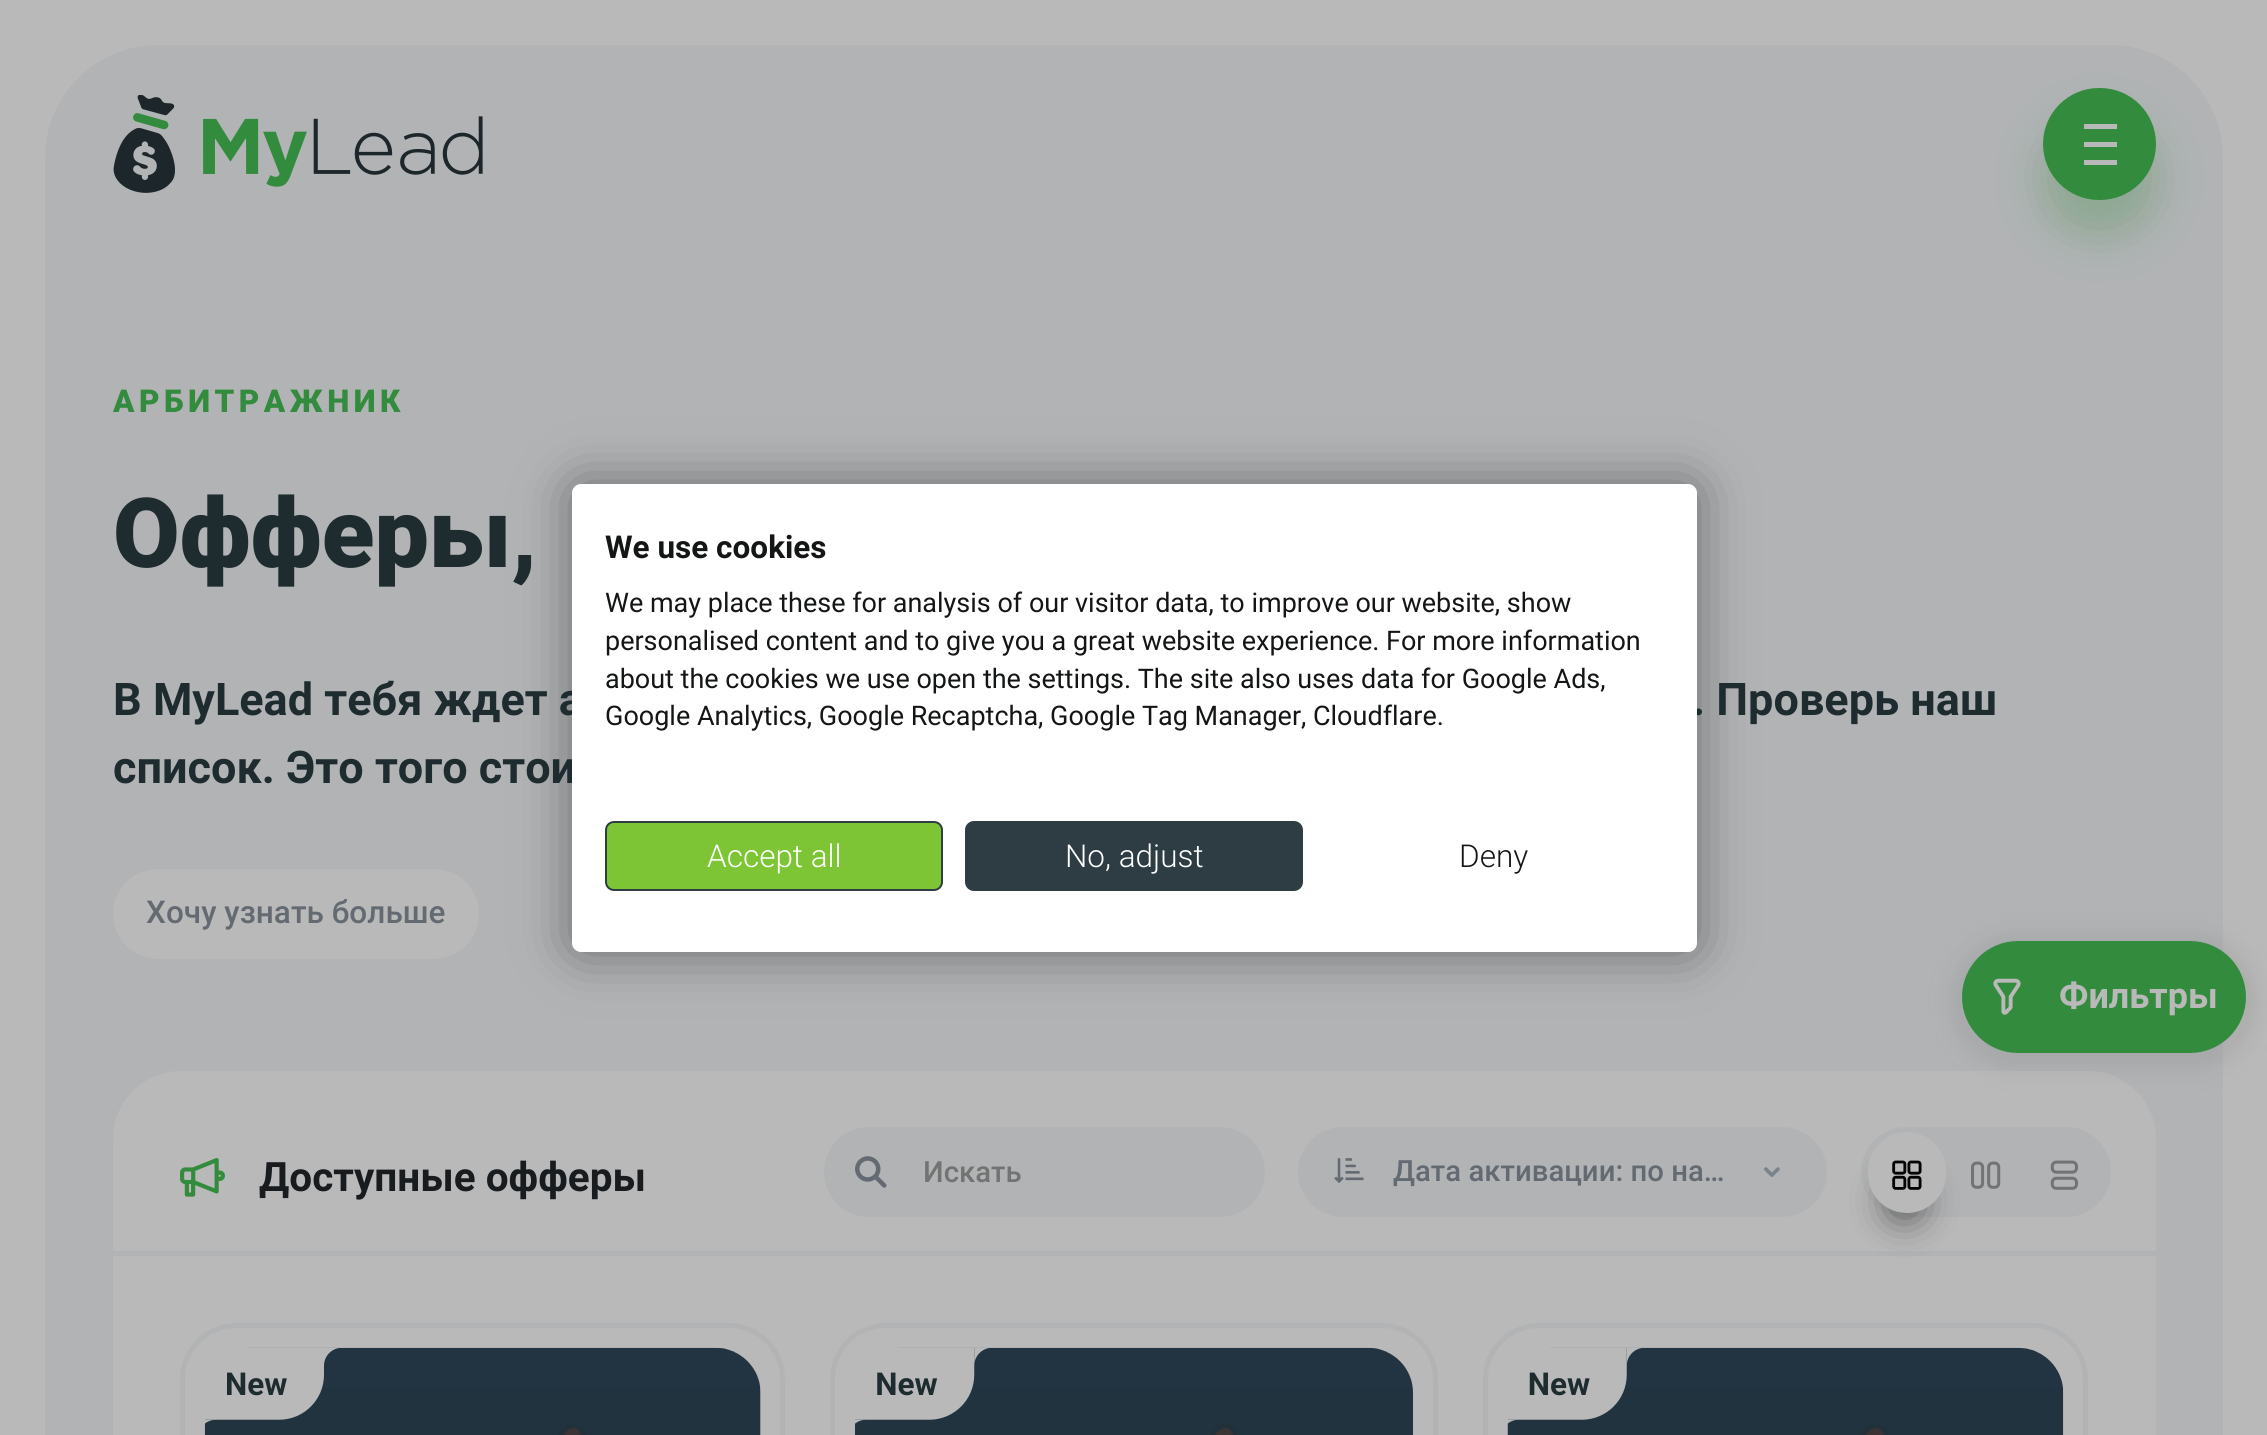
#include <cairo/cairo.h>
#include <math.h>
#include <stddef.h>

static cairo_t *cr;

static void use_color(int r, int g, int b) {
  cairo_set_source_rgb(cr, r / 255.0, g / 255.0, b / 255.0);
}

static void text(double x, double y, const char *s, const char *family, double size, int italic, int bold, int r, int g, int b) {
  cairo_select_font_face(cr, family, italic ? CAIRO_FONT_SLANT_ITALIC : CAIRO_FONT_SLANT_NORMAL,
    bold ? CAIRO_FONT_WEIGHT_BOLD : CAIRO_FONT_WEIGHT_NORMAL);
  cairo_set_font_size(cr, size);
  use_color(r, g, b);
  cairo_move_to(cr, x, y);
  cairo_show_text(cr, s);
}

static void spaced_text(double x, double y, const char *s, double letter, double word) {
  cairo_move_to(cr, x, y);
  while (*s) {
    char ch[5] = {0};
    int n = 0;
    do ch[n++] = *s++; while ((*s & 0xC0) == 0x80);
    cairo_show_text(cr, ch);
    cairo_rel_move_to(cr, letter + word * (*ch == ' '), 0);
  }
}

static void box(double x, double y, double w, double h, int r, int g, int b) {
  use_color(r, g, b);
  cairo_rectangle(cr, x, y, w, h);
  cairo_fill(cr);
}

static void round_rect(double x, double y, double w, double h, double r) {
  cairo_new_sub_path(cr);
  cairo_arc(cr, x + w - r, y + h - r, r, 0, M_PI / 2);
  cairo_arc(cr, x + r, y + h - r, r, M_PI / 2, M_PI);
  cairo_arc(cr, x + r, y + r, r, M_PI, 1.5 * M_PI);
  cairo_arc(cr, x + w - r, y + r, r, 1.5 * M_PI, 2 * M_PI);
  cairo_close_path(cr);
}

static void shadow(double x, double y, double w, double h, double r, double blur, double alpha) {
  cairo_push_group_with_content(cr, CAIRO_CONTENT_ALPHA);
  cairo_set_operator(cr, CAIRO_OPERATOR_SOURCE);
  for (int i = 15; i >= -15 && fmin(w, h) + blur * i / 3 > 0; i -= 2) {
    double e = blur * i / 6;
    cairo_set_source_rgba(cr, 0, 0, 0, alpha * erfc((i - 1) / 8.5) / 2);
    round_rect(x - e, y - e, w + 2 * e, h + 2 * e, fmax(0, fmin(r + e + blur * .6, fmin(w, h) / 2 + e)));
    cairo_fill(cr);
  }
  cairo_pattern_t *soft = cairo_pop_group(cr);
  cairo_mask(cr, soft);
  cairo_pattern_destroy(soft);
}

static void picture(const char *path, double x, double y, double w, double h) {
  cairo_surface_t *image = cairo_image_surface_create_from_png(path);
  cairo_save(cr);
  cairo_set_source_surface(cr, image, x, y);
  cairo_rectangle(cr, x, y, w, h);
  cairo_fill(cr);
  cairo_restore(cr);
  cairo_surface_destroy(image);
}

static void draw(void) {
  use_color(185, 185, 185);
  cairo_paint(cr);
  use_color(177, 179, 181);
  round_rect(45, 45, 2178, 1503, 113);
  cairo_fill(cr);
  picture("img_01.png", 113, 95, 370, 98);
  use_color(51, 139, 61);
  shadow(2043, 122, 113, 112, 56, 22.5, 0.3);
  use_color(51, 139, 61);
  round_rect(2043, 88, 113, 112, 56);
  cairo_fill(cr);
  box(2084, 124, 33, 5, 185, 185, 185);
  box(2084, 142, 33, 5, 185, 185, 185);
  box(2084, 160, 33, 5, 185, 185, 185);
  round_rect(113, 869, 366, 90, 45);
  cairo_fill(cr);
  round_rect(113, 1071, 2043, 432, 68);
  cairo_fill(cr);
  use_color(124, 122, 124);
  shadow(1951, 934, 306, 135, 67.5, 11, 0.2);
  use_color(51, 139, 61);
  round_rect(1962, 941, 284, 112, 56);
  cairo_fill(cr);
  picture("img_02.png", 1993, 978, 28, 37);
  box(113, 1251, 2043, 5, 177, 179, 181);
  picture("img_03.png", 180, 1158, 45, 39);
  round_rect(824, 1127, 441, 90, 45);
  cairo_fill(cr);
  picture("img_04.png", 855, 1156, 32, 32);
  round_rect(1298, 1127, 529, 90, 45);
  cairo_fill(cr);
  picture("img_05.png", 1334, 1158, 30, 25);
  picture("img_06.png", 1764, 1167, 16, 10);
  round_rect(1861, 1127, 250, 90, 45);
  cairo_fill(cr);
  use_color(84, 84, 84);
  shadow(1890, 1186, 29, 31, 14.5, 19, 1);
  use_color(185, 185, 185);
  round_rect(1868, 1132, 78, 81, 39);
  cairo_fill(cr);
  picture("img_07.png", 1892, 1160, 30, 30);
  picture("img_08.png", 1971, 1161, 30, 28);
  picture("img_09.png", 2050, 1160, 28, 30);
  round_rect(182.5, 1325.5, 600, 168, 53.5);
  use_color(177, 179, 181);
  cairo_set_line_width(cr, 5);
  cairo_stroke(cr);
  round_rect(205, 1348, 556, 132, 45);
  cairo_fill(cr);
  picture("img_10.png", 204, 1347, 557, 88);
  picture("img_11.png", 204, 1348, 135, 76);
  round_rect(832.5, 1325.5, 603, 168, 53.5);
  cairo_stroke(cr);
  picture("img_12.png", 855, 1347, 558, 88);
  picture("img_13.png", 855, 1348, 134, 76);
  round_rect(1485.5, 1325.5, 600, 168, 53.5);
  cairo_stroke(cr);
  picture("img_14.png", 1507, 1347, 557, 88);
  picture("img_15.png", 1507, 1348, 135, 76);
  use_color(0, 0, 0);
  shadow(572, 484, 1125, 468, 9, 27, 0.4);
  cairo_select_font_face(cr, "Roboto Black", CAIRO_FONT_SLANT_NORMAL, CAIRO_FONT_WEIGHT_NORMAL);
  cairo_set_font_size(cr, 31.5);
  use_color(51, 139, 61);
  spaced_text(113, 412, "АРБИТРАЖНИК", 4.5, 0);
  text(113, 567, "Офферы,", "Roboto Black", 96.75, 0, 0, 30, 44, 48);
  text(113, 715, "В MyLead тебя ждет а", "Roboto", 45, 0, 1, 30, 44, 48);
  text(1692, 715, ". Проверь наш", "Roboto", 45, 0, 1, 30, 44, 48);
  text(113, 783, "список. Это того стои", "Roboto", 45, 0, 1, 30, 44, 48);
  text(146, 923, "Хочу узнать больше", "Roboto Medium", 31.5, 0, 0, 99, 106, 114);
  text(2059, 1008, "Фильтры", "Roboto", 36, 0, 1, 185, 185, 185);
  text(259, 1191, "Доступные офферы", "Roboto", 40.5, 0, 1, 25, 28, 31);
  text(923, 1182, "Искать", "Roboto Medium", 29.25, 0, 0, 115, 115, 115);
  text(1393, 1181, "Дата активации: по на…", "Roboto Medium", 29.25, 0, 0, 99, 106, 114);
  use_color(255, 255, 255);
  round_rect(572, 484, 1125, 468, 9);
  cairo_fill(cr);
  text(605, 558, "We use cookies", "Roboto", 31.5, 0, 1, 20, 22, 22);
  text(605, 612, "We may place these for analysis of our visitor data, to improve our website, show", "Roboto", 27, 0, 0, 20, 22, 22);
  text(605, 650, "personalised content and to give you a great website experience. For more information", "Roboto", 27, 0, 0, 20, 22, 22);
  text(605, 688, "about the cookies we use open the settings. The site also uses data for Google Ads,", "Roboto", 27, 0, 0, 20, 22, 22);
  text(605, 725, "Google Analytics, Google Recaptcha, Google Tag Manager, Cloudflare.", "Roboto", 27, 0, 0, 20, 22, 22);
  use_color(125, 197, 52);
  round_rect(606, 822, 336, 68, 8);
  cairo_fill_preserve(cr);
  use_color(46, 61, 67);
  cairo_set_line_width(cr, 2);
  cairo_stroke(cr);
  text(707, 867, "Accept all", "Roboto Light", 31.5, 0, 0, 255, 255, 255);
  use_color(46, 61, 67);
  round_rect(966, 822, 336, 68, 8);
  cairo_fill_preserve(cr);
  cairo_stroke(cr);
  text(1065, 867, "No, adjust", "Roboto Light", 31.5, 0, 0, 255, 255, 255);
  text(1459, 867, "Deny", "Roboto Light", 31.5, 0, 0, 20, 22, 22);
}

int main(void) {
  cairo_surface_t *surface = cairo_image_surface_create(CAIRO_FORMAT_RGB24, 2267, 1435);
  cr = cairo_create(surface);
  cairo_font_options_t *options = cairo_font_options_create();
  cairo_font_options_set_hint_metrics(options, CAIRO_HINT_METRICS_OFF);
  cairo_font_options_set_hint_style(options, CAIRO_HINT_STYLE_NONE);
  cairo_set_font_options(cr, options);
  cairo_set_miter_limit(cr, 4);
  draw();
  cairo_surface_write_to_png(surface, "out.png");
  cairo_font_options_destroy(options);
  cairo_destroy(cr);
  cairo_surface_destroy(surface);
  return 0;
}
